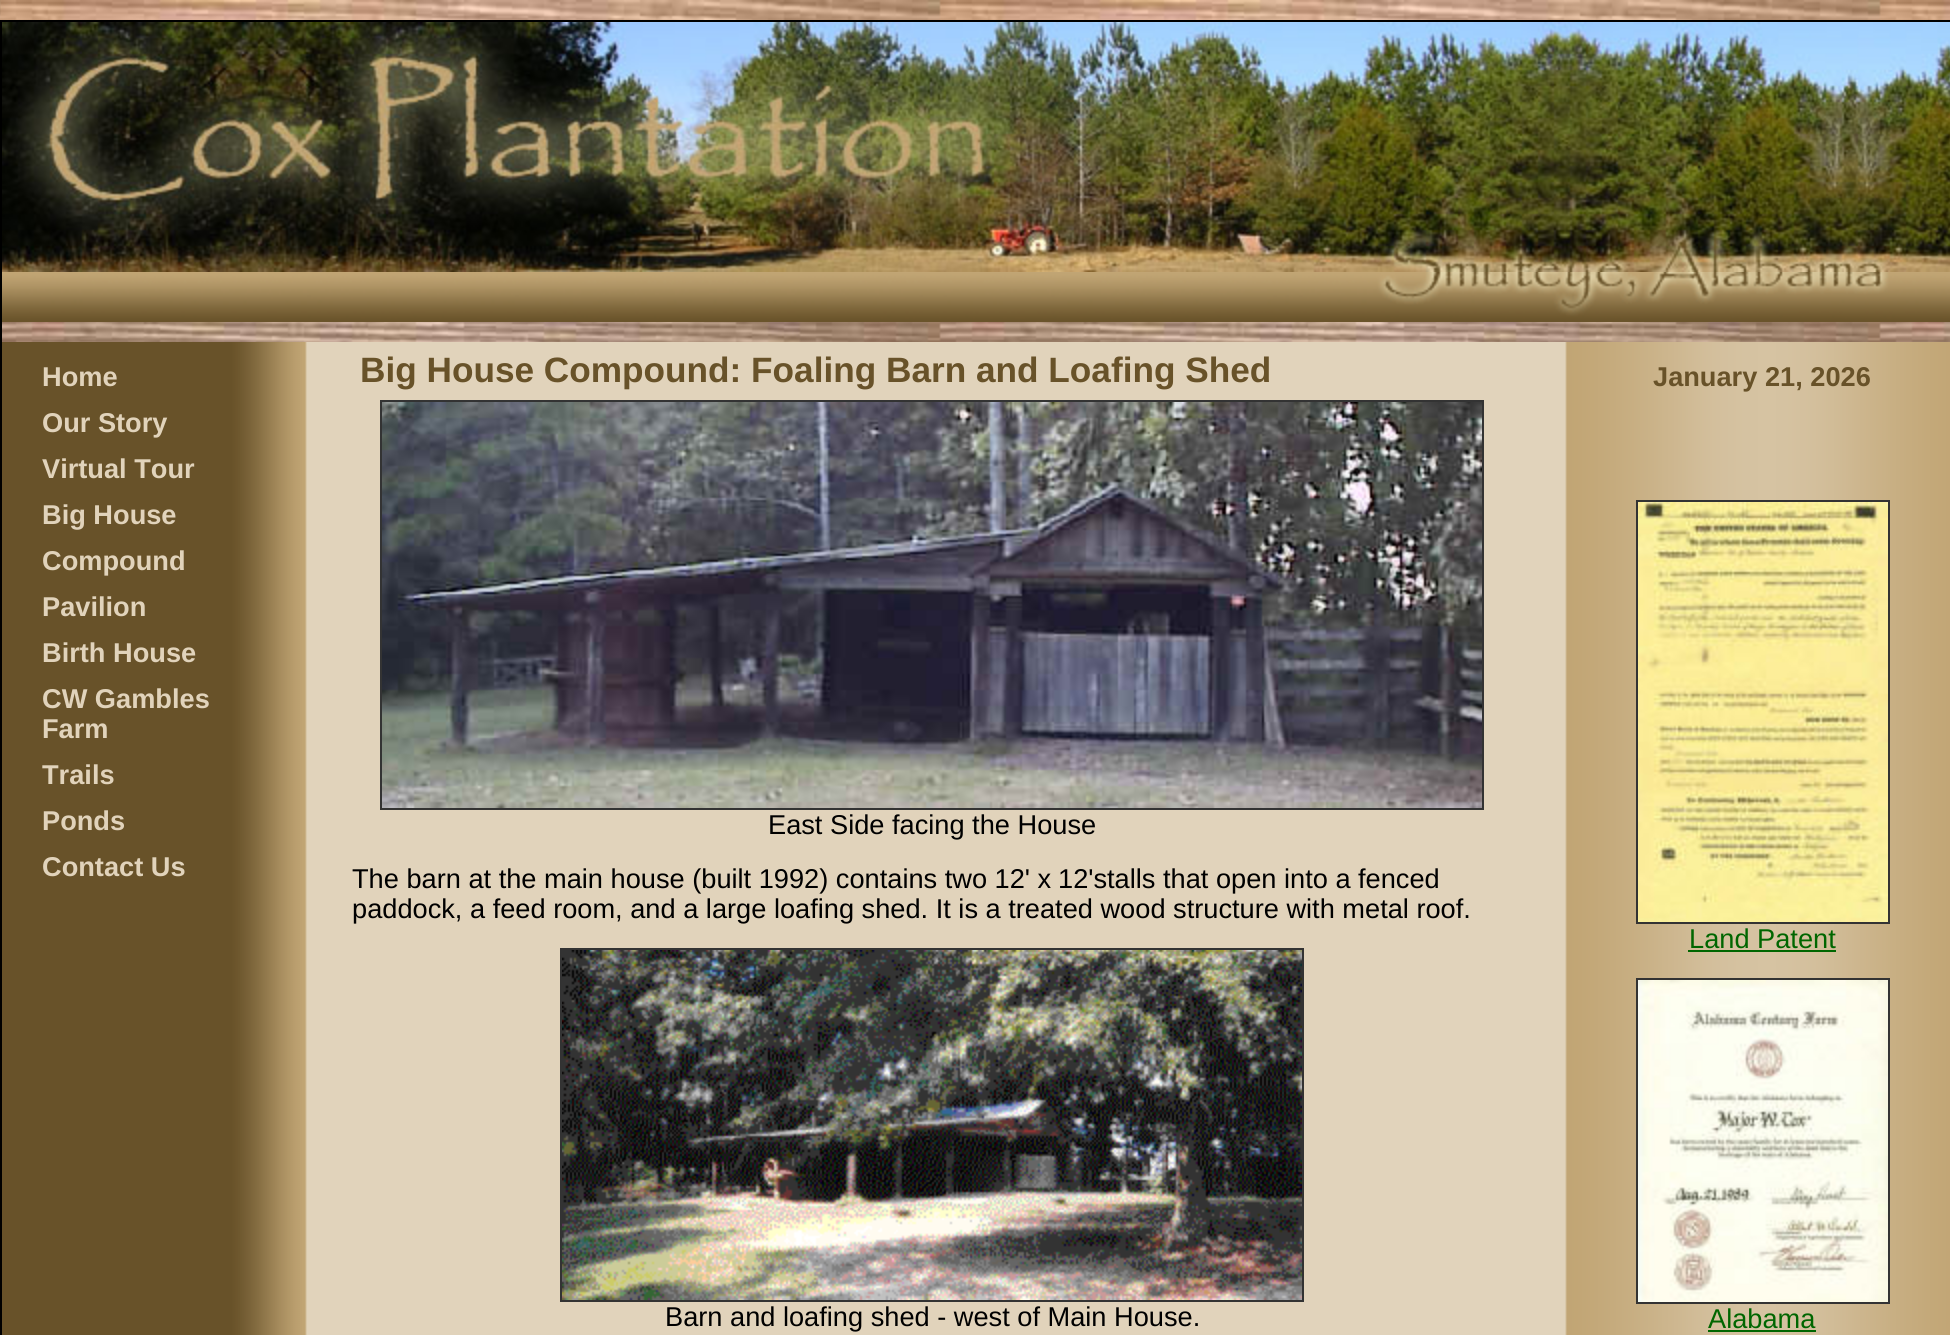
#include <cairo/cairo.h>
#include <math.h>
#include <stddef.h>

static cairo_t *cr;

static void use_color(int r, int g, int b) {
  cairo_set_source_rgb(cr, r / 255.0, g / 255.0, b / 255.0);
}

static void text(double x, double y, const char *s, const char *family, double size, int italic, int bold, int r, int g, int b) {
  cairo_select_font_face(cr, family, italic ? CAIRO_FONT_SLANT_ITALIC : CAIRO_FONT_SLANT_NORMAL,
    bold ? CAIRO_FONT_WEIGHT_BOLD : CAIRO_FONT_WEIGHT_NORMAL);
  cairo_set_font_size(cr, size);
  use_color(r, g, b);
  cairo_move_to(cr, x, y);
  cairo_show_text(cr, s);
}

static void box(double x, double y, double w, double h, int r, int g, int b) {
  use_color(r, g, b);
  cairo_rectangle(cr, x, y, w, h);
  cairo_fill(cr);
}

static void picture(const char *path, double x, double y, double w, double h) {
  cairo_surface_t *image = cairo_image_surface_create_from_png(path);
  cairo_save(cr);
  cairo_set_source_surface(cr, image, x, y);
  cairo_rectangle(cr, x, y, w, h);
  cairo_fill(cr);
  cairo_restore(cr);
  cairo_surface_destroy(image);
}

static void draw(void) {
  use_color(255, 255, 255);
  cairo_paint(cr);
  picture("img_01.png", 0, 0, 1950, 342);
  cairo_rectangle(cr, 1, 21, 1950, 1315);
  use_color(0, 0, 0);
  cairo_stroke(cr);
  picture("img_02.png", 2, 22, 1948, 250);
  picture("img_03.png", 2, 272, 1948, 50);
  picture("img_04.png", 2, 342, 1948, 993);
  cairo_rectangle(cr, 381, 401, 1102, 408);
  use_color(51, 51, 51);
  cairo_stroke(cr);
  picture("img_05.png", 382, 402, 1100, 406);
  cairo_rectangle(cr, 561, 949, 742, 352);
  cairo_stroke(cr);
  picture("img_06.png", 562, 950, 740, 350);
  cairo_rectangle(cr, 1637, 501, 252, 422);
  cairo_stroke(cr);
  picture("img_07.png", 1638, 502, 250, 420);
  box(1688, 950, 148, 2, 0, 102, 0);
  cairo_rectangle(cr, 1637, 979, 252, 324);
  use_color(51, 51, 51);
  cairo_stroke(cr);
  picture("img_08.png", 1638, 980, 250, 322);
  box(1708, 1330, 108, 2, 0, 102, 0);
  text(42, 386, "Home", "Liberation Sans", 27.2, 0, 1, 225, 211, 187);
  text(42, 432, "Our Story", "Liberation Sans", 27.2, 0, 1, 225, 211, 187);
  text(42, 478, "Virtual Tour", "Liberation Sans", 27.2, 0, 1, 225, 211, 187);
  text(42, 524, "Big House", "Liberation Sans", 27.2, 0, 1, 225, 211, 187);
  text(42, 570, "Compound", "Liberation Sans", 27.2, 0, 1, 225, 211, 187);
  text(42, 616, "Pavilion", "Liberation Sans", 27.2, 0, 1, 225, 211, 187);
  text(42, 662, "Birth House", "Liberation Sans", 27.2, 0, 1, 225, 211, 187);
  text(42, 708, "CW Gambles", "Liberation Sans", 27.2, 0, 1, 225, 211, 187);
  text(42, 738, "Farm", "Liberation Sans", 27.2, 0, 1, 225, 211, 187);
  text(42, 784, "Trails", "Liberation Sans", 27.2, 0, 1, 225, 211, 187);
  text(42, 830, "Ponds", "Liberation Sans", 27.2, 0, 1, 225, 211, 187);
  text(42, 876, "Contact Us", "Liberation Sans", 27.2, 0, 1, 225, 211, 187);
  text(360, 382, "Big House Compound: Foaling Barn and Loafing Shed", "Liberation Sans", 35.2, 0, 1, 104, 82, 41);
  text(768, 834, "East Side facing the House", "Liberation Sans", 27.2, 0, 0, 0, 0, 0);
  text(352, 888, "The barn at the main house (built 1992) contains two 12' x", "Liberation Sans", 27.2, 0, 0, 0, 0, 0);
  text(1058, 888, "12'stalls that open into a fenced", "Liberation Sans", 27.2, 0, 0, 0, 0, 0);
  text(352, 918, "paddock, a feed room, and a large loafing shed. It is a treated wood structure with metal roof.", "Liberation Sans", 27.2, 0, 0, 0, 0, 0);
  text(665, 1326, "Barn and loafing shed - west of Main House.", "Liberation Sans", 27.2, 0, 0, 0, 0, 0);
  text(1653, 386, "January 21, 2026", "Liberation Sans", 27.2, 0, 1, 104, 82, 41);
  text(1689, 948, "Land Patent", "Liberation Sans", 27.2, 0, 0, 0, 102, 0);
  text(1708, 1328, "Alabama", "Liberation Sans", 27.2, 0, 0, 0, 102, 0);
}

int main(void) {
  cairo_surface_t *surface = cairo_image_surface_create(CAIRO_FORMAT_RGB24, 1950, 1335);
  cr = cairo_create(surface);
  cairo_font_options_t *options = cairo_font_options_create();
  cairo_font_options_set_hint_metrics(options, CAIRO_HINT_METRICS_OFF);
  cairo_font_options_set_hint_style(options, CAIRO_HINT_STYLE_NONE);
  cairo_set_font_options(cr, options);
  cairo_set_miter_limit(cr, 4);
  draw();
  cairo_surface_write_to_png(surface, "out.png");
  cairo_font_options_destroy(options);
  cairo_destroy(cr);
  cairo_surface_destroy(surface);
  return 0;
}
